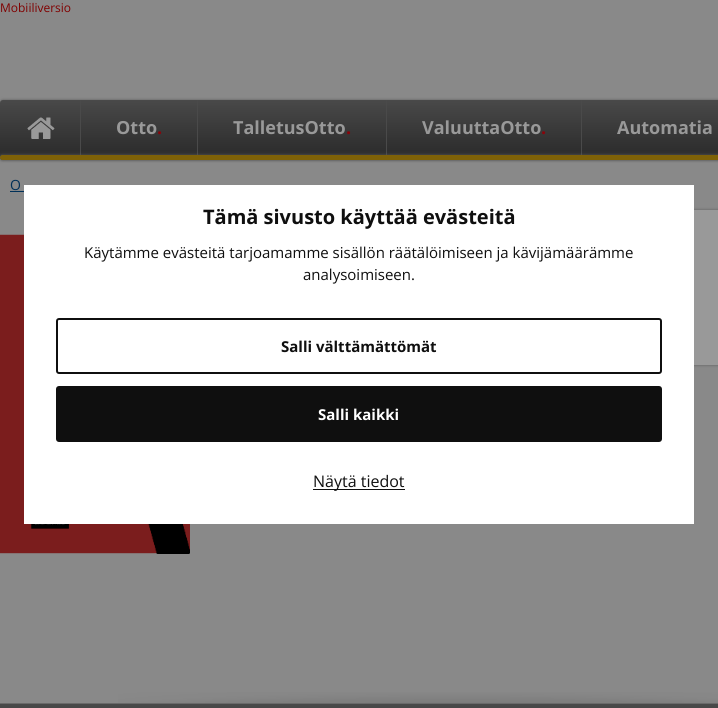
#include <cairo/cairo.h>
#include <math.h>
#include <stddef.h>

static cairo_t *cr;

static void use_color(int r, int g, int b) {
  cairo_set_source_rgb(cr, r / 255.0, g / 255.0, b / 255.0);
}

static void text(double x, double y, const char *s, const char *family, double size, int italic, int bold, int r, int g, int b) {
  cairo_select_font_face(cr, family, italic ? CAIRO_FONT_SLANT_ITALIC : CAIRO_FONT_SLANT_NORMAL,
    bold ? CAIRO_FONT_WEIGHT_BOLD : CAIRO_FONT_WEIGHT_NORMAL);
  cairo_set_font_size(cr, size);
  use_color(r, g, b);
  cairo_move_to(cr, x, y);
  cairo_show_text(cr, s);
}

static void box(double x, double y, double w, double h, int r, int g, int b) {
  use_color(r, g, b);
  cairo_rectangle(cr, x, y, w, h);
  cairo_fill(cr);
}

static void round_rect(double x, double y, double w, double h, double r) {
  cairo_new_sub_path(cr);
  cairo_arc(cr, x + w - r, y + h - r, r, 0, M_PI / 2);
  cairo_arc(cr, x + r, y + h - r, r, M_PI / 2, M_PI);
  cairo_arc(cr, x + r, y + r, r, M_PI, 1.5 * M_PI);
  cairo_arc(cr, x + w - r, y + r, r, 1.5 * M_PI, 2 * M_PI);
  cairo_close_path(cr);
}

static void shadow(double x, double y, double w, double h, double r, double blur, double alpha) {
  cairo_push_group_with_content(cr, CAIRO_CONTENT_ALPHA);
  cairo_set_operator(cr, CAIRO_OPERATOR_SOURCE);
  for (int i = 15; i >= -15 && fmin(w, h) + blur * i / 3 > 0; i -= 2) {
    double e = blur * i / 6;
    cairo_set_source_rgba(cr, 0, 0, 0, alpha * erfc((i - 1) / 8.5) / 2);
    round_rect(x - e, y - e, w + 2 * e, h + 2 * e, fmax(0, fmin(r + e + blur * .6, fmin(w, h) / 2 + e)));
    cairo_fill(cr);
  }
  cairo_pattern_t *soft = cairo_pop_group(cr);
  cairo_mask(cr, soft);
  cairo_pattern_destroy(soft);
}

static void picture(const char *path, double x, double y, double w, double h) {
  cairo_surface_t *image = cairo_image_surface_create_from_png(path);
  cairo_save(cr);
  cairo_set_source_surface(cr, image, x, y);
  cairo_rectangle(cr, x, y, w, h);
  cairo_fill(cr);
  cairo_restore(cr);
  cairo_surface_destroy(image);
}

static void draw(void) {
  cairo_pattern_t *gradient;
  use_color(137, 137, 137);
  cairo_paint(cr);
  use_color(92, 92, 92);
  shadow(0, 100, 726, 60, 3, 1.5, 1);
  gradient = cairo_pattern_create_linear(475, 100, 475, 160);
  cairo_pattern_add_color_stop_rgba(gradient, 0, 0.286, 0.286, 0.286, 1);
  cairo_pattern_add_color_stop_rgba(gradient, 1, 0.161, 0.161, 0.161, 1);
  cairo_set_source(cr, gradient);
  cairo_pattern_destroy(gradient);
  round_rect(0, 100, 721, 60, 3);
  cairo_fill(cr);
  picture("img_01.png", 27, 117, 28, 22);
  box(80, 100, 1, 55, 74, 74, 74);
  box(197, 100, 1, 55, 74, 74, 74);
  box(386, 100, 1, 55, 74, 74, 74);
  box(581, 100, 1, 55, 74, 74, 74);
  use_color(92, 92, 92);
  shadow(0, 155, 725, 5, 2.5, 1.5, 1);
  use_color(126, 97, 7);
  round_rect(0, 155, 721, 5, 2.5);
  cairo_fill(cr);
  box(10, 191, 14, 1, 0, 48, 88);
  picture("img_02.png", 0, 234, 190, 320);
  use_color(92, 92, 92);
  shadow(200, 210, 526, 155, 3, 1.5, 1);
  box(694, 210, 24, 155, 153, 153, 153);
  picture("img_03.png", 118, 692, 600, 11);
  gradient = cairo_pattern_create_linear(475, 704, 475, 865);
  cairo_pattern_add_color_stop_rgba(gradient, 0, 0.286, 0.286, 0.286, 1);
  cairo_pattern_add_color_stop_rgba(gradient, 1, 0.161, 0.161, 0.161, 1);
  cairo_set_source(cr, gradient);
  cairo_pattern_destroy(gradient);
  cairo_rectangle(cr, 0, 704, 718, 4);
  cairo_fill(cr);
  box(0, 703, 718, 1, 106, 106, 106);
  box(24, 185, 670, 339, 255, 255, 255);
  round_rect(57, 319, 604, 54, 2);
  use_color(15, 15, 15);
  cairo_stroke(cr);
  round_rect(57, 387, 604, 54, 2);
  cairo_fill_preserve(cr);
  cairo_stroke(cr);
  box(313, 489, 92, 1, 15, 15, 15);
  text(0, 12, "Mobiiliversio", "Open Sans", 12, 0, 0, 128, 0, 0);
  text(116, 134, "Otto", "Open Sans", 18, 0, 1, 153, 153, 153);
  text(157, 134, ".", "Open Sans", 18, 0, 1, 136, 4, 11);
  text(233, 134, "TalletusOtto", "Open Sans", 18, 0, 1, 153, 153, 153);
  text(346, 134, ".", "Open Sans", 18, 0, 1, 136, 4, 11);
  text(422, 134, "ValuuttaOtto", "Open Sans", 18, 0, 1, 153, 153, 153);
  text(541, 134, ".", "Open Sans", 18, 0, 1, 136, 4, 11);
  text(617, 134, "Automatia", "Open Sans", 18, 0, 1, 153, 153, 153);
  text(10, 190, "O", "Open Sans", 14, 0, 0, 0, 48, 88);
  text(203, 224, "Tämä sivusto käyttää evästeitä", "Open Sans", 20, 0, 1, 15, 15, 15);
  text(84, 258, "Käytämme evästeitä tarjoamamme sisällön räätälöimiseen ja kävijämäärämme", "Open Sans", 15, 0, 0, 15, 15, 15);
  text(303, 280, "analysoimiseen.", "Open Sans", 15, 0, 0, 15, 15, 15);
  text(281, 352, "Salli välttämättömät", "Open Sans", 15, 0, 1, 15, 15, 15);
  text(318, 420, "Salli kaikki", "Open Sans", 15, 0, 1, 255, 255, 255);
  text(313, 487, "Näytä tiedot", "Open Sans", 16, 0, 0, 15, 15, 15);
}

int main(void) {
  cairo_surface_t *surface = cairo_image_surface_create(CAIRO_FORMAT_RGB24, 718, 708);
  cr = cairo_create(surface);
  cairo_font_options_t *options = cairo_font_options_create();
  cairo_font_options_set_hint_metrics(options, CAIRO_HINT_METRICS_OFF);
  cairo_font_options_set_hint_style(options, CAIRO_HINT_STYLE_NONE);
  cairo_set_font_options(cr, options);
  cairo_set_miter_limit(cr, 4);
  draw();
  cairo_surface_write_to_png(surface, "out.png");
  cairo_font_options_destroy(options);
  cairo_destroy(cr);
  cairo_surface_destroy(surface);
  return 0;
}
